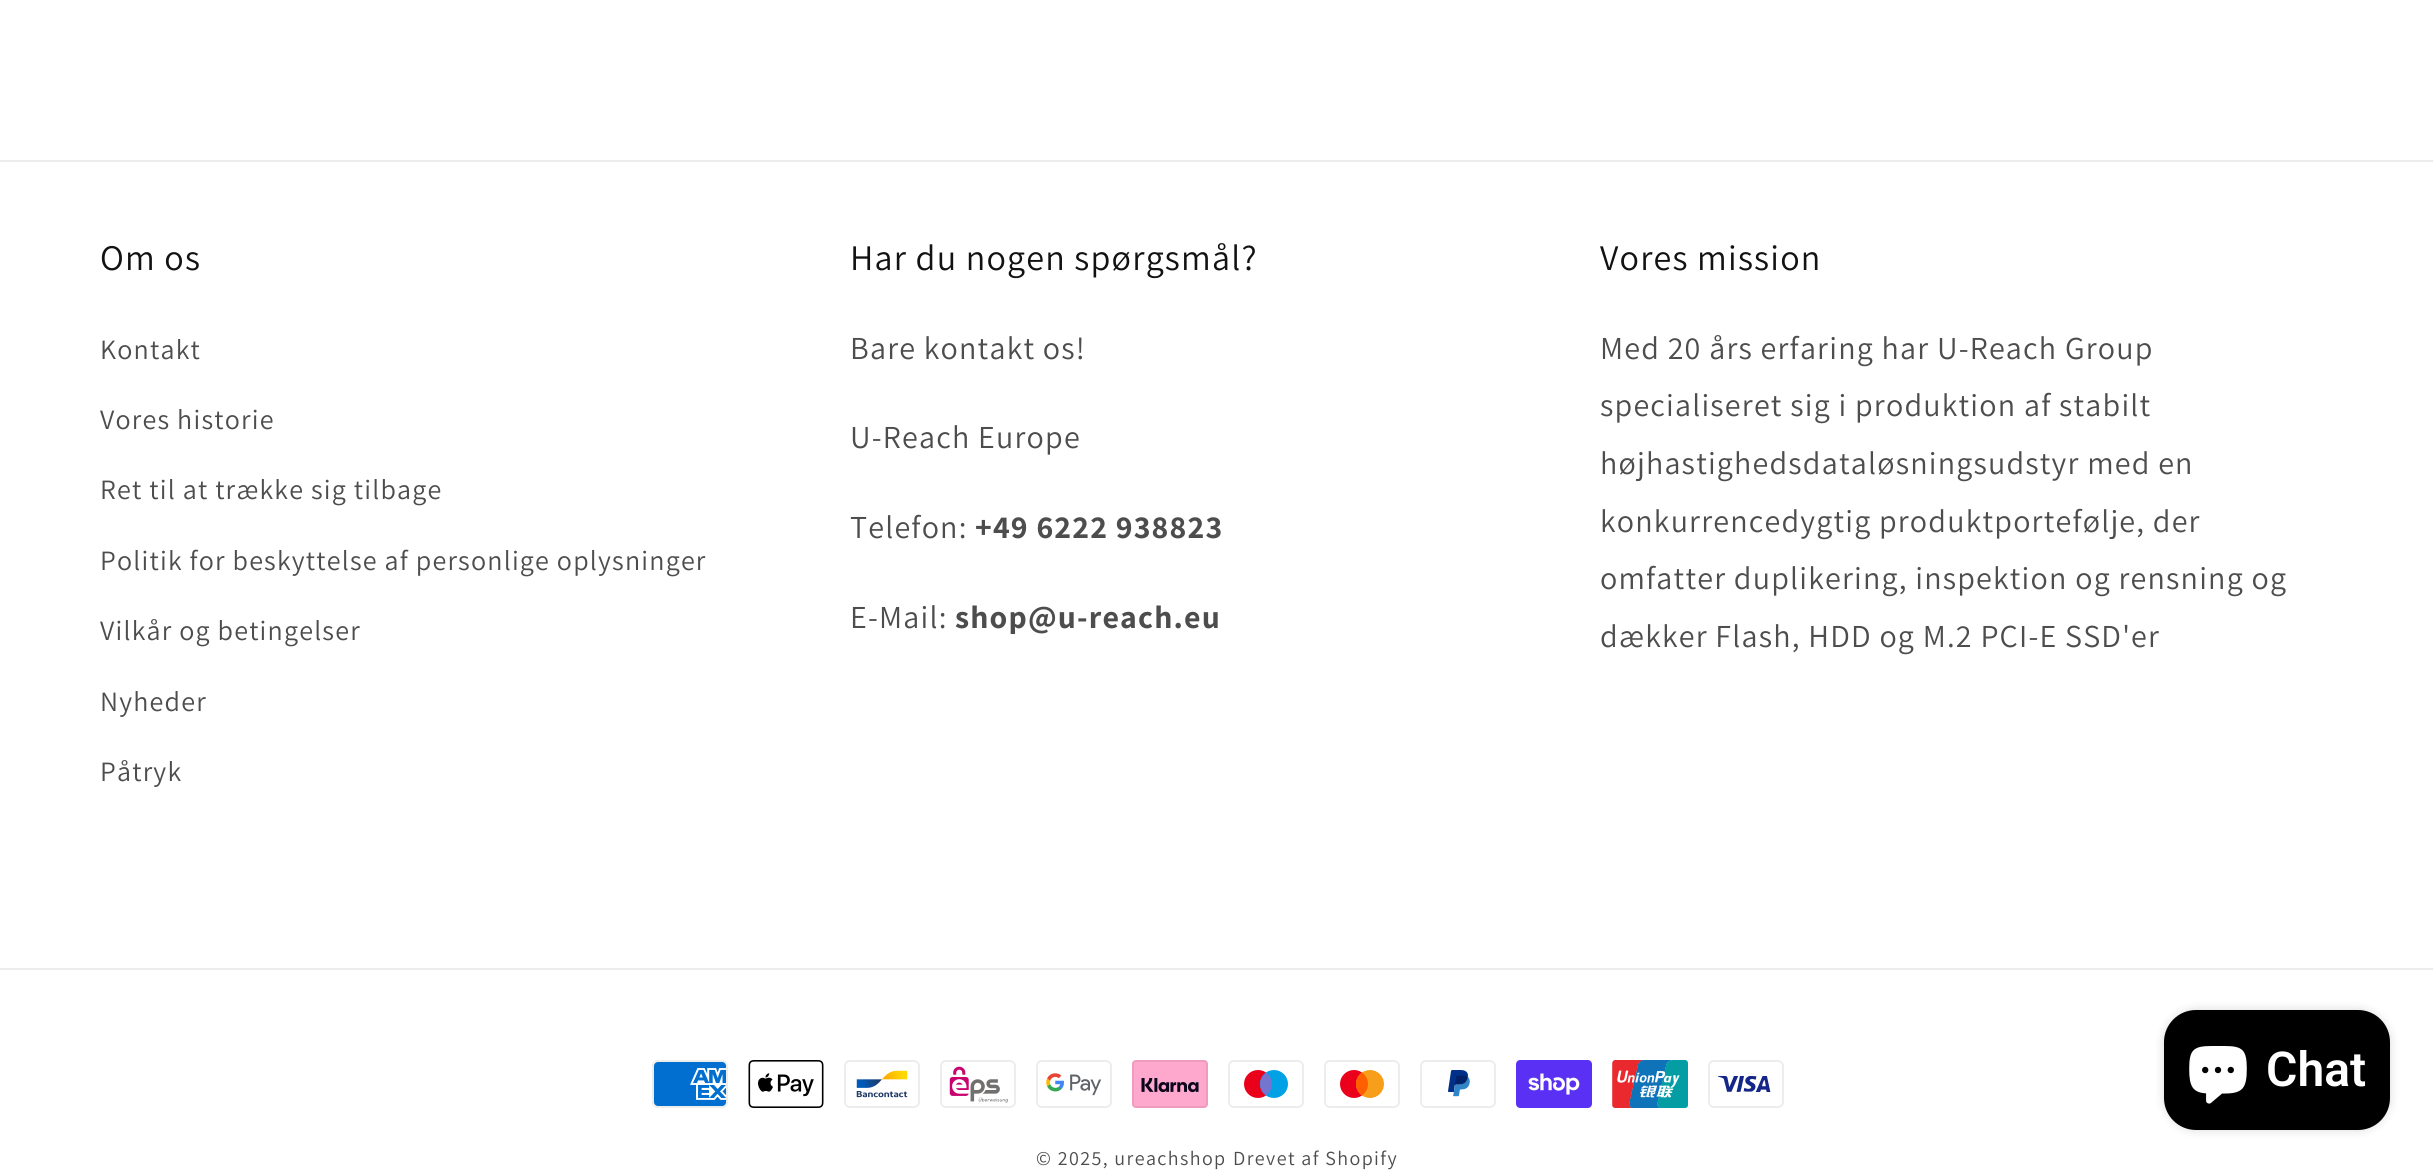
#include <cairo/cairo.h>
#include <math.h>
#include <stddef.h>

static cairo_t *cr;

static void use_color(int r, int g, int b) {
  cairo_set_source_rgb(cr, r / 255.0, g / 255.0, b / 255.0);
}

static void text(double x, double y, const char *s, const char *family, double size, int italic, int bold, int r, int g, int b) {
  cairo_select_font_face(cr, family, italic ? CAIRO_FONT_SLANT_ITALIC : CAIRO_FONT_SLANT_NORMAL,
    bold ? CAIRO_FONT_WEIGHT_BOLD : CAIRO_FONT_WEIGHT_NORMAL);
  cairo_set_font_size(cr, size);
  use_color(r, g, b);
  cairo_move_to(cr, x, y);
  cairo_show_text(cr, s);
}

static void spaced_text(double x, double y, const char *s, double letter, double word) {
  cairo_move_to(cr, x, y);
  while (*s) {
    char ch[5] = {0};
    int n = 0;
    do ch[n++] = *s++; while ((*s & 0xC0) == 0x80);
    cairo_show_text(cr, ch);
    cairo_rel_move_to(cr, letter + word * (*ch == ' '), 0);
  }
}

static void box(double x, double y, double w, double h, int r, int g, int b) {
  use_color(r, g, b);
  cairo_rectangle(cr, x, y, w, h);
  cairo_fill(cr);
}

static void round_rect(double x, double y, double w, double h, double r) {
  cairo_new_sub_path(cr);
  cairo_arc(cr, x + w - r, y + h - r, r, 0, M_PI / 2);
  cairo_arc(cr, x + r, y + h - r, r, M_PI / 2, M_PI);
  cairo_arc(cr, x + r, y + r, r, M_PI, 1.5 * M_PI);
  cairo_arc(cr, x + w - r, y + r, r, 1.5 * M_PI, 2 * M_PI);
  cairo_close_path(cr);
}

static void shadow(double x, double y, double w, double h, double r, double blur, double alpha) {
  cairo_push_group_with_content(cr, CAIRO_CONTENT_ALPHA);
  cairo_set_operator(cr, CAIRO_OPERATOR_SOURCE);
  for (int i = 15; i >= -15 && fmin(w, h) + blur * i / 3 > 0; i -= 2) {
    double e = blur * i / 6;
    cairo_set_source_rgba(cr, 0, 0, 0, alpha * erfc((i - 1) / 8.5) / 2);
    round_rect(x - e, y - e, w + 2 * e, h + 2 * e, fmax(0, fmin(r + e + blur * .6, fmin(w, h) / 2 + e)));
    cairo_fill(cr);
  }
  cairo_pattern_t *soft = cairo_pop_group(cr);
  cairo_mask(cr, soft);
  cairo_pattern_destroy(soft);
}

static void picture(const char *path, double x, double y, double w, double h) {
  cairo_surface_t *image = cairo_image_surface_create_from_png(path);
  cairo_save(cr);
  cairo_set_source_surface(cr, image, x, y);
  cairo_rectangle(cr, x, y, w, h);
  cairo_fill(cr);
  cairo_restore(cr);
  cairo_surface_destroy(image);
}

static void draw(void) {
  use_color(255, 255, 255);
  cairo_paint(cr);
  box(0, 160, 2433, 2, 236, 236, 236);
  box(0, 968, 2433, 2, 236, 236, 236);
  picture("img_01.png", 652, 1060, 76, 48);
  picture("img_02.png", 748, 1060, 76, 48);
  picture("img_03.png", 844, 1060, 76, 48);
  picture("img_04.png", 940, 1060, 76, 48);
  picture("img_05.png", 1036, 1060, 76, 48);
  picture("img_06.png", 1132, 1060, 76, 48);
  picture("img_07.png", 1228, 1060, 76, 48);
  picture("img_08.png", 1324, 1060, 76, 48);
  picture("img_09.png", 1420, 1060, 76, 48);
  picture("img_10.png", 1516, 1060, 76, 48);
  picture("img_11.png", 1612, 1060, 76, 48);
  picture("img_12.png", 1708, 1060, 76, 48);
  use_color(0, 0, 0);
  shadow(2164, 1010, 226, 120, 32, 5, 0.15);
  use_color(0, 0, 0);
  round_rect(2164, 1010, 226, 120, 32);
  cairo_fill(cr);
  picture("img_13.png", 2189, 1046, 58, 58);
  cairo_select_font_face(cr, "Assistant", CAIRO_FONT_SLANT_NORMAL, CAIRO_FONT_WEIGHT_NORMAL);
  cairo_set_font_size(cr, 36);
  use_color(18, 18, 18);
  spaced_text(100, 270, "Om os", 1.2, 0);
  cairo_set_font_size(cr, 28);
  use_color(77, 77, 77);
  spaced_text(100, 359, "Kontakt", 1.2, 0);
  spaced_text(100, 429, "Vores historie", 1.2, 0);
  spaced_text(100, 499, "Ret til at trække sig tilbage", 1.2, 0);
  spaced_text(100, 570, "Politik for beskyttelse af personlige oplysninger", 1.2, 0);
  spaced_text(100, 640, "Vilkår og betingelser", 1.2, 0);
  spaced_text(100, 711, "Nyheder", 1.2, 0);
  spaced_text(100, 781, "Påtryk", 1.2, 0);
  cairo_set_font_size(cr, 36);
  use_color(18, 18, 18);
  spaced_text(850, 270, "Har du nogen spørgsmål?", 1.2, 0);
  cairo_set_font_size(cr, 32);
  use_color(77, 77, 77);
  spaced_text(850, 359, "Bare kontakt os!", 1.2, 0);
  spaced_text(850, 448, "U-Reach Europe", 1.2, 0);
  spaced_text(850, 538, "Telefon:", 1.2, 0);
  cairo_select_font_face(cr, "Assistant", CAIRO_FONT_SLANT_NORMAL, CAIRO_FONT_WEIGHT_BOLD);
  spaced_text(975, 538, "+49 6222 938823", 1.2, 0);
  cairo_select_font_face(cr, "Assistant", CAIRO_FONT_SLANT_NORMAL, CAIRO_FONT_WEIGHT_NORMAL);
  spaced_text(850, 628, "E-Mail:", 1.2, 0);
  cairo_select_font_face(cr, "Assistant", CAIRO_FONT_SLANT_NORMAL, CAIRO_FONT_WEIGHT_BOLD);
  spaced_text(955, 628, "shop@u-reach.eu", 1.2, 0);
  cairo_select_font_face(cr, "Assistant", CAIRO_FONT_SLANT_NORMAL, CAIRO_FONT_WEIGHT_NORMAL);
  cairo_set_font_size(cr, 36);
  use_color(18, 18, 18);
  spaced_text(1600, 270, "Vores mission", 1.2, 0);
  cairo_set_font_size(cr, 32);
  use_color(77, 77, 77);
  spaced_text(1600, 359, "Med 20 års erfaring har U-Reach Group", 1.2, 0);
  spaced_text(1600, 416, "specialiseret sig i produktion af stabilt", 1.2, 0);
  spaced_text(1600, 474, "højhastighedsdataløsningsudstyr med en", 1.2, 0);
  spaced_text(1600, 532, "konkurrencedygtig produktportefølje, der", 1.2, 0);
  spaced_text(1600, 589, "omfatter duplikering, inspektion og rensning og", 1.2, 0);
  spaced_text(1600, 647, "dækker Flash, HDD og M.2 PCI-E SSD'er", 1.2, 0);
  cairo_set_font_size(cr, 20);
  spaced_text(1036, 1165, "© 2025, ureachshop", 1.4, 0);
  spaced_text(1233, 1165, "Drevet af Shopify", 1.4, 0);
  text(2266, 1086, "Chat", "Roboto SemiBold", 48, 0, 0, 255, 255, 255);
}

int main(void) {
  cairo_surface_t *surface = cairo_image_surface_create(CAIRO_FORMAT_RGB24, 2433, 1172);
  cr = cairo_create(surface);
  cairo_font_options_t *options = cairo_font_options_create();
  cairo_font_options_set_hint_metrics(options, CAIRO_HINT_METRICS_OFF);
  cairo_font_options_set_hint_style(options, CAIRO_HINT_STYLE_NONE);
  cairo_set_font_options(cr, options);
  cairo_set_miter_limit(cr, 4);
  draw();
  cairo_surface_write_to_png(surface, "out.png");
  cairo_font_options_destroy(options);
  cairo_destroy(cr);
  cairo_surface_destroy(surface);
  return 0;
}
